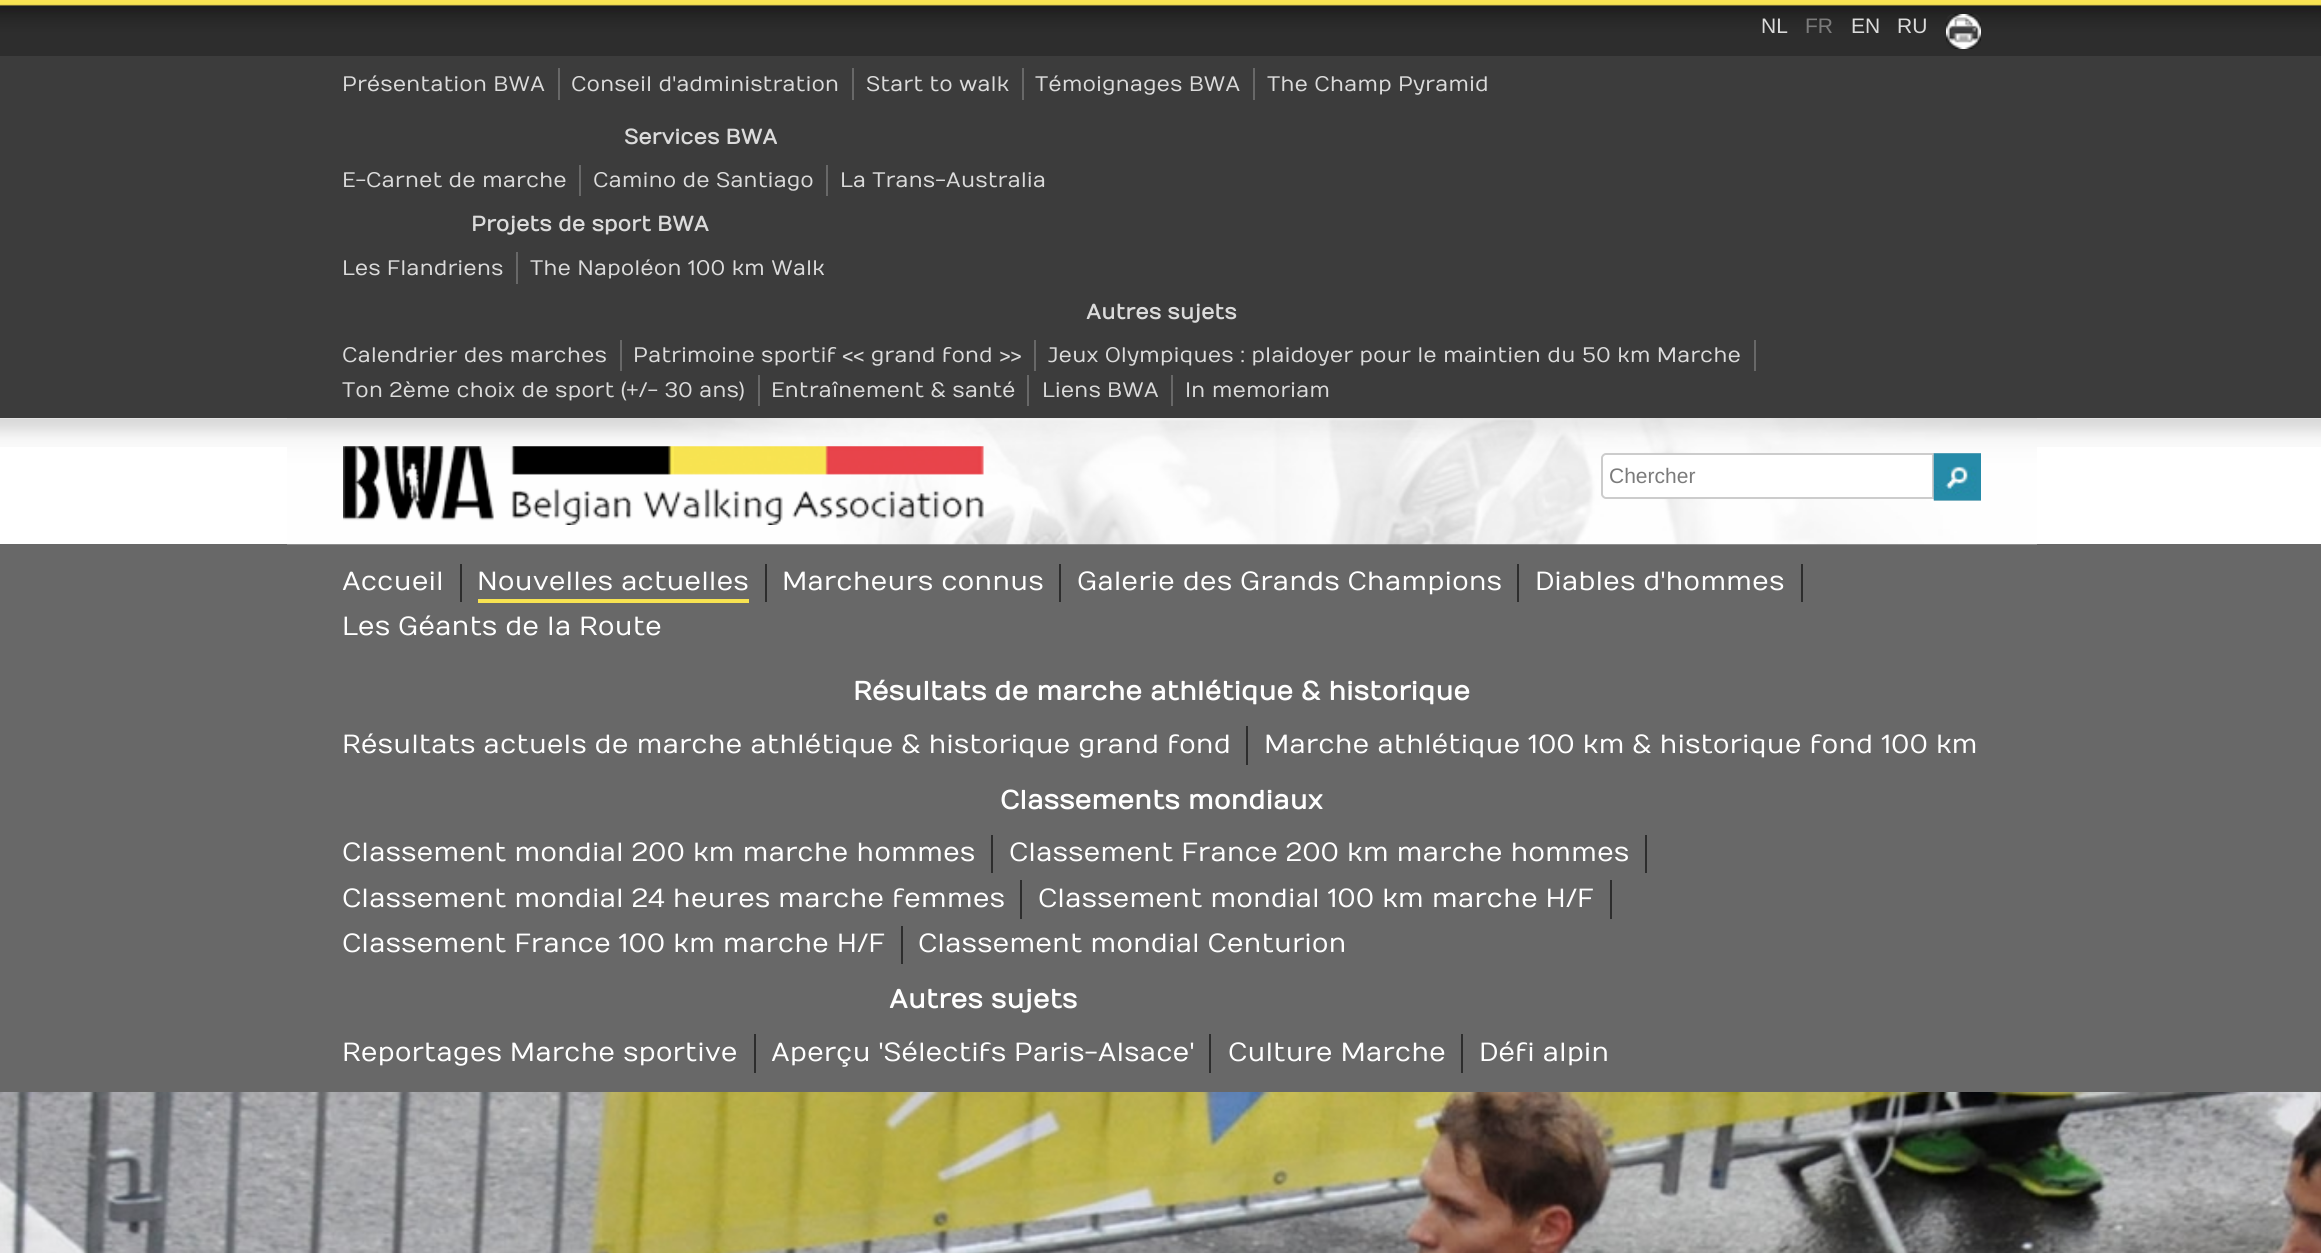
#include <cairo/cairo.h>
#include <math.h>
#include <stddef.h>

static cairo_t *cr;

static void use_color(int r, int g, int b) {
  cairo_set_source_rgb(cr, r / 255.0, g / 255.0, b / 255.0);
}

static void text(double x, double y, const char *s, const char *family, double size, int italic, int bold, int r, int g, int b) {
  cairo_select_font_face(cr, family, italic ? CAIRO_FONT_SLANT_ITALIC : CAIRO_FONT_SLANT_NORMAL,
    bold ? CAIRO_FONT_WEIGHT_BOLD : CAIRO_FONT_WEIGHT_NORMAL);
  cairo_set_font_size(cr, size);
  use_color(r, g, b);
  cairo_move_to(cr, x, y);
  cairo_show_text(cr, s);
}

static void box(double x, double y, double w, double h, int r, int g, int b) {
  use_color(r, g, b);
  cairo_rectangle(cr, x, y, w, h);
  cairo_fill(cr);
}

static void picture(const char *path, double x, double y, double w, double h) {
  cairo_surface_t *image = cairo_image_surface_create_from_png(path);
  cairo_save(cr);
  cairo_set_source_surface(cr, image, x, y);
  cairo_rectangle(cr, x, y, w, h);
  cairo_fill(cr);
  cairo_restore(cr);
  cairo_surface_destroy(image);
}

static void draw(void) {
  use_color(255, 255, 255);
  cairo_paint(cr);
  picture("img_01.png", 0, 0, 2321, 56);
  picture("img_02.png", 1946, 14, 35, 35);
  box(0, 56, 2321, 362, 60, 60, 60);
  box(558, 68, 2, 32, 104, 104, 104);
  box(852, 68, 2, 32, 104, 104, 104);
  box(1022, 68, 2, 32, 104, 104, 104);
  box(1253, 68, 2, 32, 104, 104, 104);
  box(579, 165, 2, 31, 104, 104, 104);
  box(826, 165, 2, 31, 104, 104, 104);
  box(516, 252, 2, 32, 104, 104, 104);
  box(620, 340, 2, 31, 104, 104, 104);
  box(1034, 340, 2, 31, 104, 104, 104);
  box(1754, 340, 2, 31, 104, 104, 104);
  box(758, 375, 2, 31, 104, 104, 104);
  box(1027, 375, 2, 31, 104, 104, 104);
  box(1171, 375, 2, 31, 104, 104, 104);
  picture("img_03.png", 0, 418, 2321, 29);
  box(0, 544, 2321, 548, 104, 104, 104);
  picture("img_04.png", 287, 418, 1750, 127);
  picture("img_05.png", 343, 446, 641, 79);
  use_color(255, 255, 255);
  cairo_new_path(cr);
  cairo_move_to(cr, 1606, 454);
  cairo_line_to(cr, 1933, 454);
  cairo_line_to(cr, 1933, 498);
  cairo_line_to(cr, 1606, 498);
  cairo_curve_to(cr, 1604, 498, 1602, 496, 1602, 494);
  cairo_line_to(cr, 1602, 458);
  cairo_curve_to(cr, 1602, 456, 1604, 454, 1606, 454);
  cairo_close_path(cr);
  cairo_fill_preserve(cr);
  use_color(204, 204, 204);
  cairo_stroke(cr);
  box(1934, 453, 47, 48, 221, 221, 221);
  picture("img_06.png", 1933, 453, 48, 48);
  box(460, 564, 2, 38, 45, 45, 45);
  box(765, 564, 2, 38, 45, 45, 45);
  box(478, 599, 271, 4, 248, 227, 81);
  box(1059, 564, 2, 38, 45, 45, 45);
  box(1517, 564, 2, 38, 45, 45, 45);
  box(1801, 564, 2, 38, 45, 45, 45);
  box(1246, 726, 2, 39, 45, 45, 45);
  box(991, 835, 2, 38, 45, 45, 45);
  box(1645, 835, 2, 38, 45, 45, 45);
  box(1020, 880, 2, 39, 45, 45, 45);
  box(1610, 880, 2, 39, 45, 45, 45);
  box(901, 926, 2, 38, 45, 45, 45);
  box(754, 1034, 2, 39, 45, 45, 45);
  box(1209, 1034, 2, 39, 45, 45, 45);
  box(1461, 1034, 2, 39, 45, 45, 45);
  picture("img_07.png", 0, 1092, 2321, 161);
  text(1761, 33, "NL", "Liberation Sans", 21, 0, 0, 219, 219, 219);
  text(1805, 33, "FR", "Liberation Sans", 21, 0, 0, 123, 123, 123);
  text(1851, 33, "EN", "Liberation Sans", 21, 0, 0, 219, 219, 219);
  text(1897, 33, "RU", "Liberation Sans", 21, 0, 0, 219, 219, 219);
  text(342, 91, "Présentation BWA", "Numans", 21, 0, 0, 219, 219, 219);
  text(571, 91, "Conseil d'administration", "Numans", 21, 0, 0, 219, 219, 219);
  text(866, 91, "Start to walk", "Numans", 21, 0, 0, 219, 219, 219);
  text(1035, 91, "Témoignages BWA", "Numans", 21, 0, 0, 219, 219, 219);
  text(1267, 91, "The Champ Pyramid", "Numans", 21, 0, 0, 219, 219, 219);
  text(624, 144, "Services BWA", "Numans", 21, 0, 1, 219, 219, 219);
  text(342, 187, "E-Carnet de marche", "Numans", 21, 0, 0, 219, 219, 219);
  text(593, 187, "Camino de Santiago", "Numans", 21, 0, 0, 219, 219, 219);
  text(840, 187, "La Trans-Australia", "Numans", 21, 0, 0, 219, 219, 219);
  text(471, 231, "Projets de sport BWA", "Numans", 21, 0, 1, 219, 219, 219);
  text(342, 275, "Les Flandriens", "Numans", 21, 0, 0, 219, 219, 219);
  text(530, 275, "The Napoléon 100 km Walk", "Numans", 21, 0, 0, 219, 219, 219);
  text(1086, 319, "Autres sujets", "Numans", 21, 0, 1, 219, 219, 219);
  text(342, 362, "Calendrier des marches", "Numans", 21, 0, 0, 219, 219, 219);
  text(633, 362, "Patrimoine sportif << grand fond >>", "Numans", 21, 0, 0, 219, 219, 219);
  text(1048, 362, "Jeux Olympiques : plaidoyer pour le maintien du 50 km Marche", "Numans", 21, 0, 0, 219, 219, 219);
  text(342, 397, "Ton 2ème choix de sport (+/- 30 ans)", "Numans", 21, 0, 0, 219, 219, 219);
  text(771, 397, "Entraînement & santé", "Numans", 21, 0, 0, 219, 219, 219);
  text(1042, 397, "Liens BWA", "Numans", 21, 0, 0, 219, 219, 219);
  text(1185, 397, "In memoriam", "Numans", 21, 0, 0, 219, 219, 219);
  text(1609, 483, "Chercher", "Liberation Sans", 21, 0, 0, 123, 123, 123);
  text(342, 590, "Accueil", "Numans", 26.25, 0, 0, 255, 255, 255);
  text(477, 590, "Nouvelles actuelles", "Numans", 26.25, 0, 0, 255, 255, 255);
  text(782, 590, "Marcheurs connus", "Numans", 26.25, 0, 0, 255, 255, 255);
  text(1077, 590, "Galerie des Grands Champions", "Numans", 26.25, 0, 0, 255, 255, 255);
  text(1535, 590, "Diables d'hommes", "Numans", 26.25, 0, 0, 255, 255, 255);
  text(342, 635, "Les Géants de la Route", "Numans", 26.25, 0, 0, 255, 255, 255);
  text(853, 700, "Résultats de marche athlétique & historique", "Numans", 26.25, 0, 1, 255, 255, 255);
  text(342, 753, "Résultats actuels de marche athlétique & historique grand fond", "Numans", 26.25, 0, 0, 255, 255, 255);
  text(1264, 753, "Marche athlétique 100 km & historique fond 100 km", "Numans", 26.25, 0, 0, 255, 255, 255);
  text(1000, 809, "Classements mondiaux", "Numans", 26.25, 0, 1, 255, 255, 255);
  text(342, 861, "Classement mondial 200 km marche hommes", "Numans", 26.25, 0, 0, 255, 255, 255);
  text(1009, 861, "Classement France 200 km marche hommes", "Numans", 26.25, 0, 0, 255, 255, 255);
  text(342, 907, "Classement mondial 24 heures marche femmes", "Numans", 26.25, 0, 0, 255, 255, 255);
  text(1038, 907, "Classement mondial 100 km marche H/F", "Numans", 26.25, 0, 0, 255, 255, 255);
  text(342, 952, "Classement France 100 km marche H/F", "Numans", 26.25, 0, 0, 255, 255, 255);
  text(918, 952, "Classement mondial Centurion", "Numans", 26.25, 0, 0, 255, 255, 255);
  text(889, 1008, "Autres sujets", "Numans", 26.25, 0, 1, 255, 255, 255);
  text(342, 1061, "Reportages Marche sportive", "Numans", 26.25, 0, 0, 255, 255, 255);
  text(771, 1061, "Aperçu 'Sélectifs Paris-Alsace'", "Numans", 26.25, 0, 0, 255, 255, 255);
  text(1228, 1061, "Culture Marche", "Numans", 26.25, 0, 0, 255, 255, 255);
  text(1479, 1061, "Défi alpin", "Numans", 26.25, 0, 0, 255, 255, 255);
}

int main(void) {
  cairo_surface_t *surface = cairo_image_surface_create(CAIRO_FORMAT_RGB24, 2321, 1253);
  cr = cairo_create(surface);
  cairo_font_options_t *options = cairo_font_options_create();
  cairo_font_options_set_hint_metrics(options, CAIRO_HINT_METRICS_OFF);
  cairo_font_options_set_hint_style(options, CAIRO_HINT_STYLE_NONE);
  cairo_set_font_options(cr, options);
  cairo_set_miter_limit(cr, 4);
  draw();
  cairo_surface_write_to_png(surface, "out.png");
  cairo_font_options_destroy(options);
  cairo_destroy(cr);
  cairo_surface_destroy(surface);
  return 0;
}
